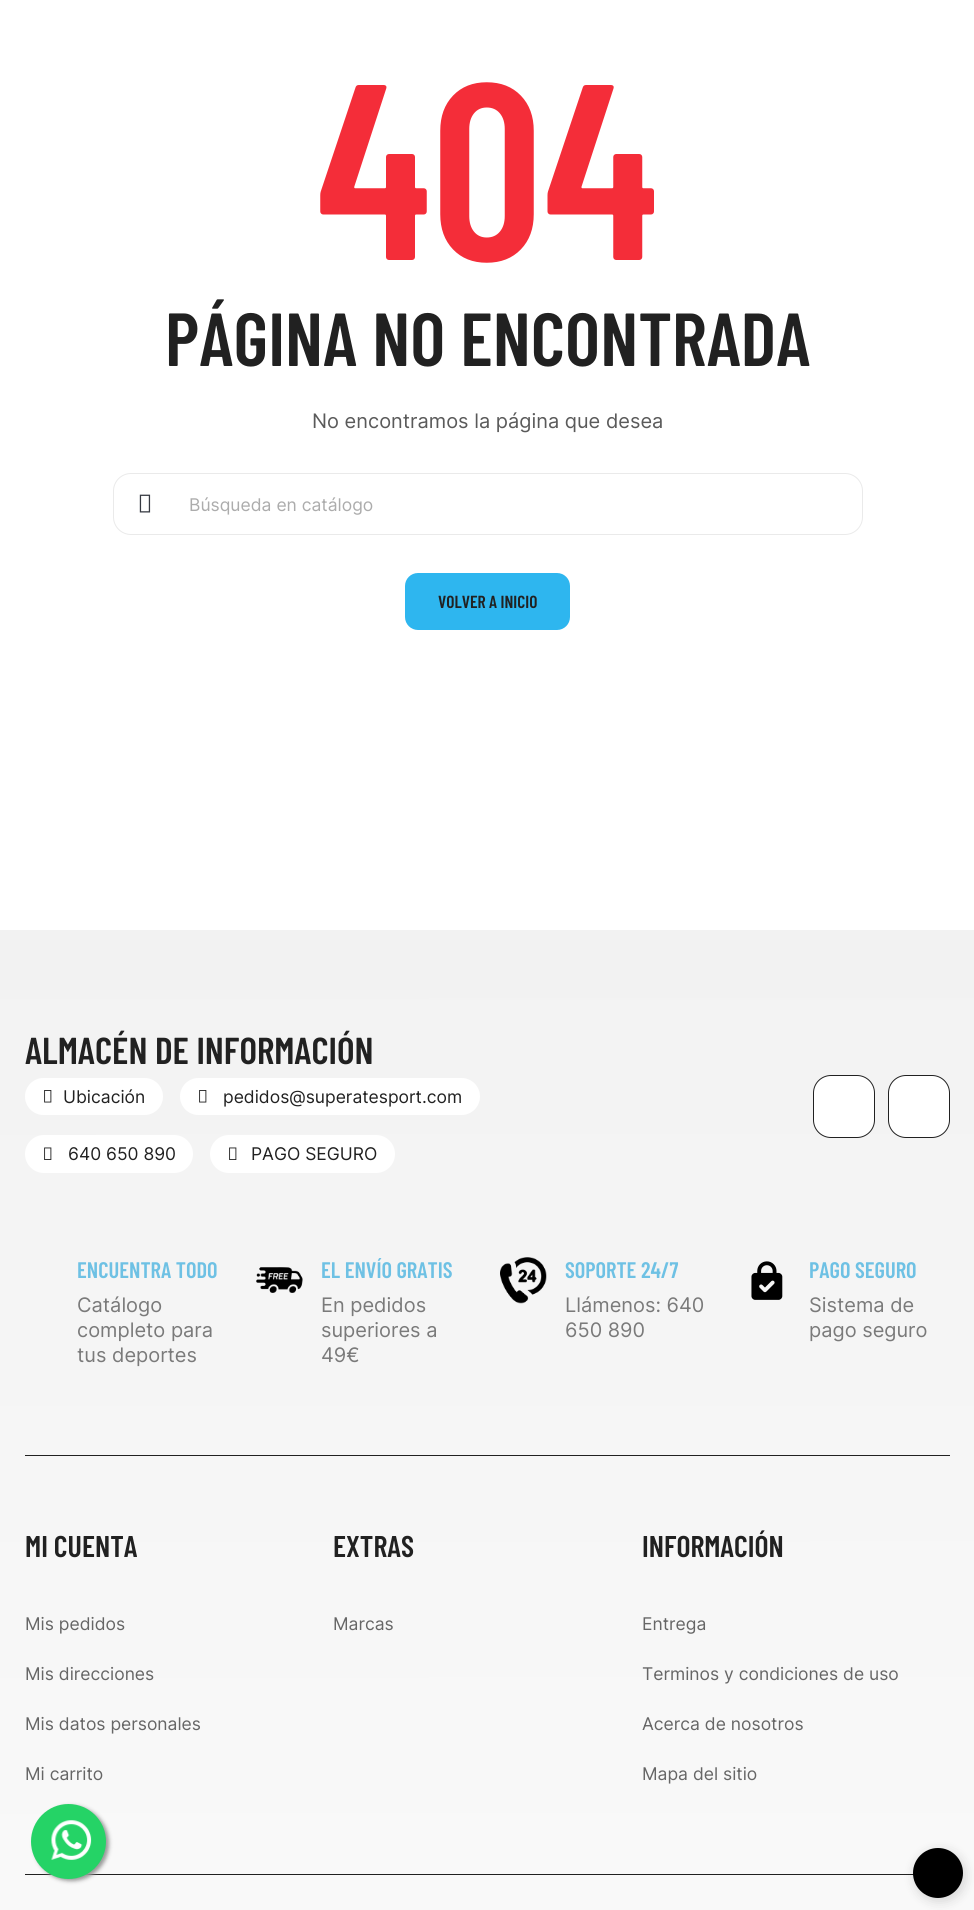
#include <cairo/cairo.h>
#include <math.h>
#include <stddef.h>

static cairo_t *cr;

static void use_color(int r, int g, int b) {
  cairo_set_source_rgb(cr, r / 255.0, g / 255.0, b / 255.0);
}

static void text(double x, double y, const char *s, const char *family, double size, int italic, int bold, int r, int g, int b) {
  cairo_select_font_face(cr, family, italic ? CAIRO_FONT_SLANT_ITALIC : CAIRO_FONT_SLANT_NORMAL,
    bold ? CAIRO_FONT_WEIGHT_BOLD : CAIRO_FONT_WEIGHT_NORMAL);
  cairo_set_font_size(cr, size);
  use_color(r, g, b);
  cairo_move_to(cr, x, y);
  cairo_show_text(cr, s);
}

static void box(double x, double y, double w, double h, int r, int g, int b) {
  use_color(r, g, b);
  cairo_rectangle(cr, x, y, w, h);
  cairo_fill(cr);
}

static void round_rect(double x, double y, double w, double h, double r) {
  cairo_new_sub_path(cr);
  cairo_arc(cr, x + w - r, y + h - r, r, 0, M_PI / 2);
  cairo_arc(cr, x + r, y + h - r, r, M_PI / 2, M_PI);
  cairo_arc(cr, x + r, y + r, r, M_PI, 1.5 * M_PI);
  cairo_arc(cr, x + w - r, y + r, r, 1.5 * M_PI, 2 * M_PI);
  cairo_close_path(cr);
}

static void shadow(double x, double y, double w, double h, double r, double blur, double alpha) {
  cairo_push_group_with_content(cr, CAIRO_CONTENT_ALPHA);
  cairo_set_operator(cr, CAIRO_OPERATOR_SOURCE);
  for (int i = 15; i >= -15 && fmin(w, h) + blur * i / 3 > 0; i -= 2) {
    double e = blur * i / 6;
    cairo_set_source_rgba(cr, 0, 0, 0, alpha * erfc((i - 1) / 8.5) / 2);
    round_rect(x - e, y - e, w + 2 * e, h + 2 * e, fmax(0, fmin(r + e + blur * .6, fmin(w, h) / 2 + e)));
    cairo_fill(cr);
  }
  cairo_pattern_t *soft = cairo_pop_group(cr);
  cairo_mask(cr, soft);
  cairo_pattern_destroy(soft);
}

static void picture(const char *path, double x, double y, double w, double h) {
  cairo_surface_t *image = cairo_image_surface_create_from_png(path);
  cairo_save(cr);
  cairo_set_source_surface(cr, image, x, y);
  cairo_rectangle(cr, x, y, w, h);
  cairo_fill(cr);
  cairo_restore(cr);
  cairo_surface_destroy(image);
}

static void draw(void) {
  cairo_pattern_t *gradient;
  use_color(255, 255, 255);
  cairo_paint(cr);
  round_rect(113.5, 473.5, 749, 61, 17.5);
  use_color(234, 234, 234);
  cairo_set_line_width(cr, 1);
  cairo_stroke(cr);
  picture("img_01.png", 139, 494, 12, 19);
  use_color(46, 182, 239);
  round_rect(405, 573, 165, 57, 13);
  cairo_fill(cr);
  gradient = cairo_pattern_create_linear(487, 930, 488, 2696);
  cairo_pattern_add_color_stop_rgba(gradient, 0, 0.949, 0.949, 0.949, 1);
  cairo_pattern_add_color_stop_rgba(gradient, 1, 1, 1, 1, 1);
  cairo_set_source(cr, gradient);
  cairo_pattern_destroy(gradient);
  cairo_rectangle(cr, 0, 930, 974, 980);
  cairo_fill(cr);
  use_color(255, 255, 255);
  round_rect(25, 1078, 138, 37, 18.5);
  cairo_fill(cr);
  picture("img_02.png", 44, 1090, 8, 13);
  round_rect(180, 1078, 300, 37, 18.5);
  cairo_fill(cr);
  picture("img_02.png", 199, 1090, 8, 13);
  round_rect(25, 1135, 168, 38, 19);
  cairo_fill(cr);
  picture("img_03.png", 44, 1147, 8, 13);
  round_rect(210, 1135, 185, 38, 19);
  cairo_fill(cr);
  picture("img_03.png", 229, 1147, 8, 13);
  round_rect(813.5, 1075.5, 61, 62, 17.5);
  cairo_fill_preserve(cr);
  use_color(33, 33, 33);
  cairo_stroke(cr);
  use_color(255, 255, 255);
  round_rect(888.5, 1075.5, 61, 62, 17.5);
  cairo_fill_preserve(cr);
  use_color(33, 33, 33);
  cairo_stroke(cr);
  picture("img_04.png", 256, 1267, 47, 26);
  picture("img_05.png", 500, 1257, 47, 47);
  picture("img_06.png", 751, 1261, 32, 39);
  box(25, 1455, 925, 1, 33, 33, 33);
  box(25, 1874, 889, 1, 33, 33, 33);
  use_color(0, 0, 0);
  shadow(915, 1851, 50, 50, 25, 6, 0.15);
  use_color(0, 0, 0);
  cairo_arc(cr, 938, 1873, 25, 0, 2 * M_PI);
  cairo_fill(cr);
  use_color(153, 153, 153);
  shadow(34, 1806, 75, 75, 37.5, 2, 1);
  use_color(37, 211, 102);
  cairo_arc(cr, 68.5, 1841.5, 37.5, 0, 2 * M_PI);
  cairo_fill(cr);
  picture("img_07.png", 51, 1820, 41, 40);
  text(316, 260, "404", "Barlow Condensed SemiBold", 250, 0, 0, 244, 45, 57);
  text(165, 366, "PÁGINA NO ENCONTRADA", "Barlow Condensed SemiBold", 75, 0, 0, 33, 33, 33);
  text(312, 428, "No encontramos la página que desea", "Inter", 20, 0, 0, 90, 90, 90);
  text(189, 511, "Búsqueda en catálogo", "Inter", 17.5, 0, 0, 172, 172, 172);
  text(438, 608, "VOLVER A INICIO", "Barlow Condensed SemiBold", 17.5, 0, 0, 33, 33, 33);
  text(25, 1064, "ALMACÉN DE INFORMACIÓN", "Barlow Condensed SemiBold", 37.5, 0, 0, 33, 33, 33);
  text(63, 1103, "Ubicación", "Inter", 17.5, 0, 0, 33, 33, 33);
  text(223, 1103, "pedidos@superatesport.com", "Inter", 17.5, 0, 0, 33, 33, 33);
  text(68, 1160, "640 650 890", "Inter", 17.5, 0, 0, 33, 33, 33);
  text(251, 1160, "PAGO SEGURO", "Inter", 17.5, 0, 0, 33, 33, 33);
  text(77, 1278, "ENCUENTRA TODO", "Barlow Condensed SemiBold", 22.5, 0, 0, 110, 193, 228);
  text(77, 1312, "Catálogo", "Inter", 20, 0, 0, 122, 122, 122);
  text(77, 1337, "completo para", "Inter", 20, 0, 0, 122, 122, 122);
  text(77, 1362, "tus deportes", "Inter", 20, 0, 0, 122, 122, 122);
  text(321, 1278, "EL ENVÍO GRATIS", "Barlow Condensed SemiBold", 22.5, 0, 0, 110, 193, 228);
  text(321, 1312, "En pedidos", "Inter", 20, 0, 0, 122, 122, 122);
  text(321, 1337, "superiores a", "Inter", 20, 0, 0, 122, 122, 122);
  text(321, 1362, "49€", "Inter", 20, 0, 0, 122, 122, 122);
  text(565, 1278, "SOPORTE 24/7", "Barlow Condensed SemiBold", 22.5, 0, 0, 110, 193, 228);
  text(565, 1312, "Llámenos: 640", "Inter", 20, 0, 0, 122, 122, 122);
  text(565, 1337, "650 890", "Inter", 20, 0, 0, 122, 122, 122);
  text(809, 1278, "PAGO SEGURO", "Barlow Condensed SemiBold", 22.5, 0, 0, 110, 193, 228);
  text(809, 1312, "Sistema de", "Inter", 20, 0, 0, 122, 122, 122);
  text(809, 1337, "pago seguro", "Inter", 20, 0, 0, 122, 122, 122);
  text(25, 1557, "MI CUENTA", "Barlow Condensed SemiBold", 30, 0, 0, 33, 33, 33);
  text(25, 1630, "Mis pedidos", "Inter", 17.5, 0, 0, 102, 102, 102);
  text(25, 1680, "Mis direcciones", "Inter", 17.5, 0, 0, 102, 102, 102);
  text(25, 1730, "Mis datos personales", "Inter", 17.5, 0, 0, 102, 102, 102);
  text(25, 1780, "Mi carrito", "Inter", 17.5, 0, 0, 102, 102, 102);
  text(333, 1557, "EXTRAS", "Barlow Condensed SemiBold", 30, 0, 0, 33, 33, 33);
  text(333, 1630, "Marcas", "Inter", 17.5, 0, 0, 102, 102, 102);
  text(642, 1557, "INFORMACIÓN", "Barlow Condensed SemiBold", 30, 0, 0, 33, 33, 33);
  text(642, 1630, "Entrega", "Inter", 17.5, 0, 0, 102, 102, 102);
  text(642, 1680, "Terminos y condiciones de uso", "Inter", 17.5, 0, 0, 102, 102, 102);
  text(642, 1730, "Acerca de nosotros", "Inter", 17.5, 0, 0, 102, 102, 102);
  text(642, 1780, "Mapa del sitio", "Inter", 17.5, 0, 0, 102, 102, 102);
}

int main(void) {
  cairo_surface_t *surface = cairo_image_surface_create(CAIRO_FORMAT_RGB24, 974, 1910);
  cr = cairo_create(surface);
  cairo_font_options_t *options = cairo_font_options_create();
  cairo_font_options_set_hint_metrics(options, CAIRO_HINT_METRICS_OFF);
  cairo_font_options_set_hint_style(options, CAIRO_HINT_STYLE_NONE);
  cairo_set_font_options(cr, options);
  cairo_set_miter_limit(cr, 4);
  draw();
  cairo_surface_write_to_png(surface, "out.png");
  cairo_font_options_destroy(options);
  cairo_destroy(cr);
  cairo_surface_destroy(surface);
  return 0;
}
